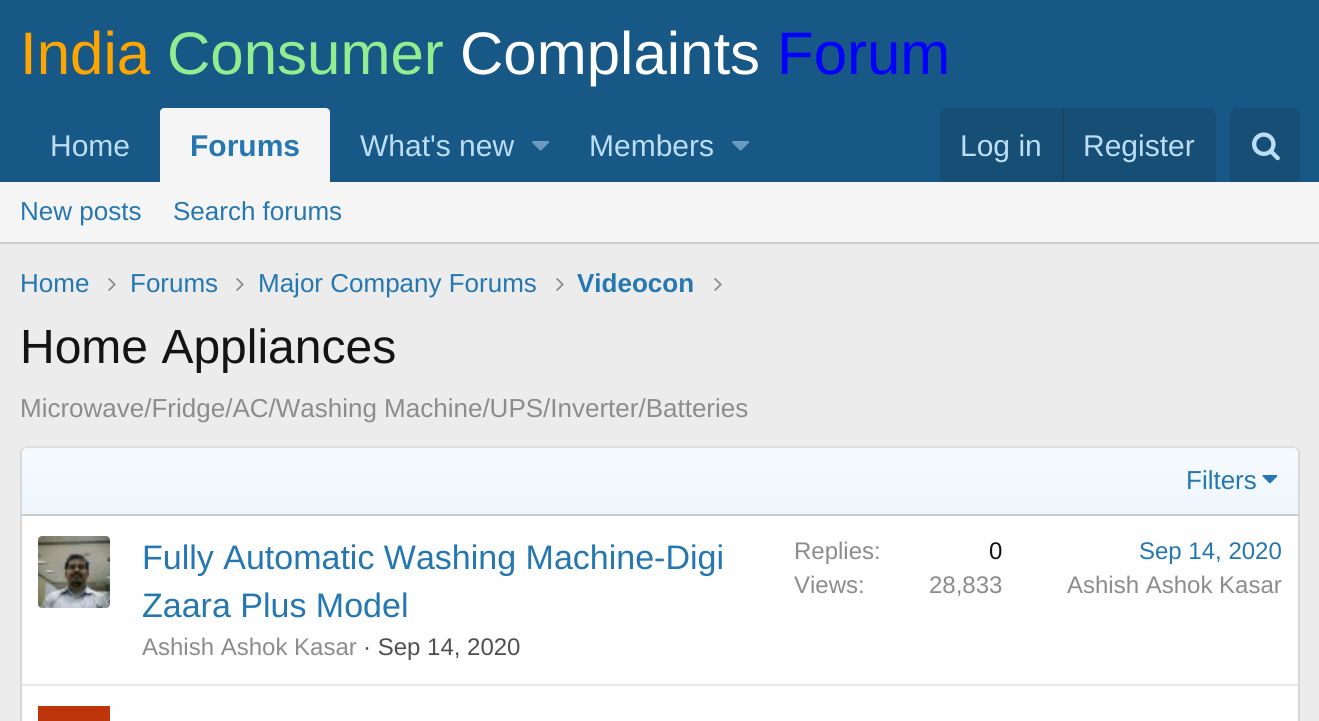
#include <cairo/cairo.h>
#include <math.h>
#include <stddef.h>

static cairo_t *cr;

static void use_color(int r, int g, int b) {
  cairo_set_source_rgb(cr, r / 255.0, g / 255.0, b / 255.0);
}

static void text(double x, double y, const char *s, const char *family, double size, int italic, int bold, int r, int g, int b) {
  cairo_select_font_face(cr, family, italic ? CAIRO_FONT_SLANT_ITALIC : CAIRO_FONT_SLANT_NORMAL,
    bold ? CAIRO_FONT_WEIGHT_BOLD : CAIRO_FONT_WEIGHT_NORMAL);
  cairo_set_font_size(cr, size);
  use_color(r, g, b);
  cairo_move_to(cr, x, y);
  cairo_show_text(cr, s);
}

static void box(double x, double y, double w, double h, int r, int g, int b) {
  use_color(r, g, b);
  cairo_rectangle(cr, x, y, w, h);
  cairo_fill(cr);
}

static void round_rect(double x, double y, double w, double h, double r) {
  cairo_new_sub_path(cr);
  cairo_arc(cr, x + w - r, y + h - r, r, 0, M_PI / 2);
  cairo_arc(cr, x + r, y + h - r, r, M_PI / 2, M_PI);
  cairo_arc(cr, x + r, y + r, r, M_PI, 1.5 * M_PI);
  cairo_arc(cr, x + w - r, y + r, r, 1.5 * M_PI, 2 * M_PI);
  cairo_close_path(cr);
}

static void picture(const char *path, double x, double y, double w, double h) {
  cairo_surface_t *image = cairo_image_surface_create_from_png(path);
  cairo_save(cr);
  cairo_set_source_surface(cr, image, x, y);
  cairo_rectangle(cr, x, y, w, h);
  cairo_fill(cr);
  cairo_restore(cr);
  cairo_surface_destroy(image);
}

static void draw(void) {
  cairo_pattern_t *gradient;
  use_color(236, 236, 236);
  cairo_paint(cr);
  box(0, 0, 1319, 182, 24, 88, 134);
  use_color(245, 245, 245);
  cairo_new_path(cr);
  cairo_move_to(cr, 164, 108);
  cairo_line_to(cr, 326, 108);
  cairo_curve_to(cr, 328, 108, 330, 110, 330, 112);
  cairo_line_to(cr, 330, 182);
  cairo_line_to(cr, 160, 182);
  cairo_line_to(cr, 160, 112);
  cairo_curve_to(cr, 160, 110, 162, 108, 164, 108);
  cairo_close_path(cr);
  cairo_fill(cr);
  picture("img_01.png", 532, 141, 18, 10);
  picture("img_01.png", 732, 141, 18, 10);
  use_color(23, 78, 117);
  cairo_new_path(cr);
  cairo_move_to(cr, 948, 108);
  cairo_line_to(cr, 1208, 108);
  cairo_curve_to(cr, 1212.5, 108, 1216, 111.5, 1216, 116);
  cairo_line_to(cr, 1216, 182);
  cairo_line_to(cr, 940, 182);
  cairo_line_to(cr, 940, 116);
  cairo_curve_to(cr, 940, 111.5, 943.5, 108, 948, 108);
  cairo_close_path(cr);
  cairo_fill(cr);
  box(1062, 108, 2, 74, 23, 69, 102);
  use_color(23, 78, 117);
  cairo_new_path(cr);
  cairo_move_to(cr, 1238, 108);
  cairo_line_to(cr, 1292, 108);
  cairo_curve_to(cr, 1296.5, 108, 1300, 111.5, 1300, 116);
  cairo_line_to(cr, 1300, 182);
  cairo_line_to(cr, 1230, 182);
  cairo_line_to(cr, 1230, 116);
  cairo_curve_to(cr, 1230, 111.5, 1233.5, 108, 1238, 108);
  cairo_close_path(cr);
  cairo_fill(cr);
  picture("img_02.png", 1252, 132, 28, 29);
  box(0, 182, 1319, 60, 245, 245, 245);
  box(0, 242, 1319, 2, 203, 203, 203);
  picture("img_03.png", 108, 278, 8, 13);
  picture("img_03.png", 236, 278, 8, 13);
  picture("img_03.png", 556, 278, 8, 13);
  picture("img_03.png", 714, 278, 8, 13);
  use_color(254, 254, 254);
  round_rect(20, 446, 1280, 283, 8);
  cairo_fill(cr);
  cairo_new_path(cr);
  cairo_move_to(cr, 23, 449);
  cairo_curve_to(cr, 24.5, 447.5, 26, 447, 28, 447);
  cairo_line_to(cr, 1292, 447);
  cairo_curve_to(cr, 1294, 447, 1295.5, 447.5, 1297, 449);
  use_color(223, 223, 223);
  cairo_stroke(cr);
  cairo_new_path(cr);
  cairo_move_to(cr, 1297, 449);
  cairo_curve_to(cr, 1298.5, 450.5, 1299, 452, 1299, 454);
  cairo_line_to(cr, 1299, 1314);
  cairo_curve_to(cr, 1299, 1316, 1298.5, 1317.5, 1297, 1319);
  use_color(216, 216, 216);
  cairo_stroke(cr);
  cairo_new_path(cr);
  cairo_move_to(cr, 23, 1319);
  cairo_curve_to(cr, 21.5, 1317.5, 21, 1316, 21, 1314);
  cairo_line_to(cr, 21, 454);
  cairo_curve_to(cr, 21, 452, 21.5, 450.5, 23, 449);
  cairo_stroke(cr);
  gradient = cairo_pattern_create_linear(660, 514, 660, 448);
  cairo_pattern_add_color_stop_rgba(gradient, 0, 0.929, 0.965, 0.992, 1);
  cairo_pattern_add_color_stop_rgba(gradient, 1, 0.965, 0.98, 0.996, 1);
  cairo_set_source(cr, gradient);
  cairo_pattern_destroy(gradient);
  cairo_new_path(cr);
  cairo_move_to(cr, 28, 448);
  cairo_line_to(cr, 1292, 448);
  cairo_curve_to(cr, 1295.5, 448, 1298, 450.5, 1298, 454);
  cairo_line_to(cr, 1298, 514);
  cairo_line_to(cr, 22, 514);
  cairo_line_to(cr, 22, 454);
  cairo_curve_to(cr, 22, 450.5, 24.5, 448, 28, 448);
  cairo_close_path(cr);
  cairo_fill(cr);
  box(22, 514, 1276, 2, 203, 203, 203);
  picture("img_04.png", 1262, 475, 16, 9);
  picture("img_05.png", 38, 536, 72, 72);
  box(22, 684, 1276, 2, 231, 231, 231);
  box(38, 706, 72, 15, 190, 53, 11);
  text(20, 74, "India", "Liberation Sans", 60, 0, 0, 255, 165, 0);
  text(167, 74, "Consumer", "Liberation Sans", 60, 0, 0, 144, 238, 144);
  text(460, 74, "Complaints", "Liberation Sans", 60, 0, 0, 255, 255, 255);
  text(777, 74, "Forum", "Liberation Sans", 60, 0, 0, 0, 0, 255);
  text(50, 156, "Home", "Liberation Sans", 30, 0, 0, 188, 222, 245);
  text(190, 156, "Forums", "Liberation Sans", 30, 0, 1, 37, 119, 177);
  text(360, 156, "What's new", "Liberation Sans", 30, 0, 0, 188, 222, 245);
  text(589, 156, "Members", "Liberation Sans", 30, 0, 0, 188, 222, 245);
  text(960, 156, "Log in", "Liberation Sans", 30, 0, 0, 188, 222, 245);
  text(1083, 156, "Register", "Liberation Sans", 30, 0, 0, 188, 222, 245);
  text(20, 220, "New posts", "Liberation Sans", 26, 0, 0, 37, 119, 177);
  text(173, 220, "Search forums", "Liberation Sans", 26, 0, 0, 37, 119, 177);
  text(20, 292, "Home", "Liberation Sans", 26, 0, 0, 37, 119, 177);
  text(130, 292, "Forums", "Liberation Sans", 26, 0, 0, 37, 119, 177);
  text(258, 292, "Major Company Forums", "Liberation Sans", 26, 0, 0, 37, 119, 177);
  text(577, 292, "Videocon", "Liberation Sans", 26, 0, 1, 37, 119, 177);
  text(20, 363, "Home Appliances", "Liberation Sans", 48, 0, 0, 20, 20, 20);
  text(20, 417, "Microwave/Fridge/AC/Washing Machine/UPS/Inverter/Batteries", "Liberation Sans", 26, 0, 0, 140, 140, 140);
  text(1186, 489, "Filters", "Liberation Sans", 26, 0, 0, 37, 119, 177);
  text(142, 569, "Fully Automatic Washing Machine-Digi", "Liberation Sans", 34, 0, 0, 37, 119, 177);
  text(142, 617, "Zaara Plus Model", "Liberation Sans", 34, 0, 0, 37, 119, 177);
  text(142, 655, "Ashish Ashok Kasar", "Liberation Sans", 24, 0, 0, 140, 140, 140);
  text(363, 655, "· Sep 14, 2020", "Liberation Sans", 24, 0, 0, 80, 80, 80);
  text(794, 559, "Replies:", "Liberation Sans", 24, 0, 0, 140, 140, 140);
  text(989, 559, "0", "Liberation Sans", 24, 0, 0, 20, 20, 20);
  text(794, 593, "Views:", "Liberation Sans", 24, 0, 0, 140, 140, 140);
  text(929, 593, "28,833", "Liberation Sans", 24, 0, 0, 140, 140, 140);
  text(1139, 559, "Sep 14, 2020", "Liberation Sans", 24, 0, 0, 37, 119, 177);
  text(1067, 593, "Ashish Ashok Kasar", "Liberation Sans", 24, 0, 0, 140, 140, 140);
}

int main(void) {
  cairo_surface_t *surface = cairo_image_surface_create(CAIRO_FORMAT_RGB24, 1319, 721);
  cr = cairo_create(surface);
  cairo_font_options_t *options = cairo_font_options_create();
  cairo_font_options_set_hint_metrics(options, CAIRO_HINT_METRICS_OFF);
  cairo_font_options_set_hint_style(options, CAIRO_HINT_STYLE_NONE);
  cairo_set_font_options(cr, options);
  cairo_set_miter_limit(cr, 4);
  draw();
  cairo_surface_write_to_png(surface, "out.png");
  cairo_font_options_destroy(options);
  cairo_destroy(cr);
  cairo_surface_destroy(surface);
  return 0;
}
